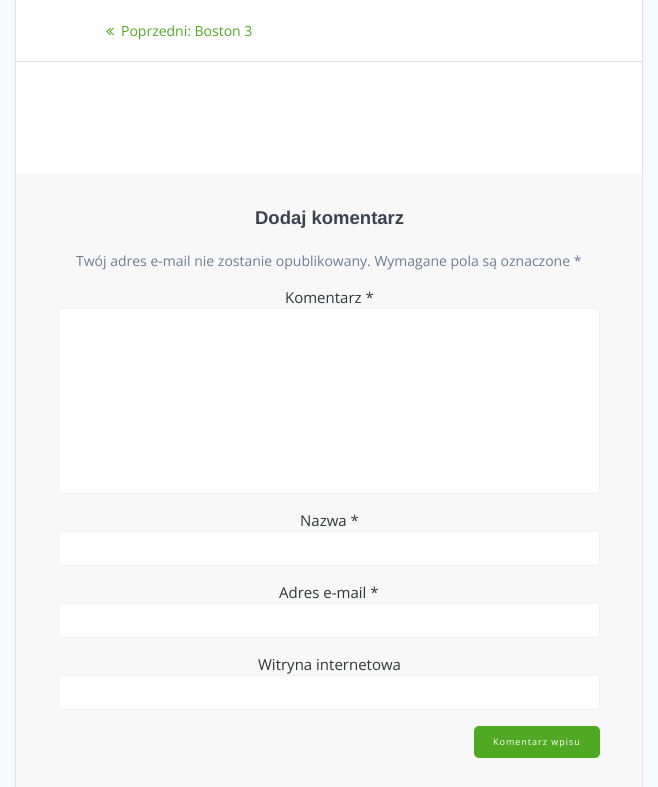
#include <cairo/cairo.h>
#include <math.h>
#include <stddef.h>

static cairo_t *cr;

static void use_color(int r, int g, int b) {
  cairo_set_source_rgb(cr, r / 255.0, g / 255.0, b / 255.0);
}

static void text(double x, double y, const char *s, const char *family, double size, int italic, int bold, int r, int g, int b) {
  cairo_select_font_face(cr, family, italic ? CAIRO_FONT_SLANT_ITALIC : CAIRO_FONT_SLANT_NORMAL,
    bold ? CAIRO_FONT_WEIGHT_BOLD : CAIRO_FONT_WEIGHT_NORMAL);
  cairo_set_font_size(cr, size);
  use_color(r, g, b);
  cairo_move_to(cr, x, y);
  cairo_show_text(cr, s);
}

static void spaced_text(double x, double y, const char *s, double letter, double word) {
  cairo_move_to(cr, x, y);
  while (*s) {
    char ch[5] = {0};
    int n = 0;
    do ch[n++] = *s++; while ((*s & 0xC0) == 0x80);
    cairo_show_text(cr, ch);
    cairo_rel_move_to(cr, letter + word * (*ch == ' '), 0);
  }
}

static void box(double x, double y, double w, double h, int r, int g, int b) {
  use_color(r, g, b);
  cairo_rectangle(cr, x, y, w, h);
  cairo_fill(cr);
}

static void round_rect(double x, double y, double w, double h, double r) {
  cairo_new_sub_path(cr);
  cairo_arc(cr, x + w - r, y + h - r, r, 0, M_PI / 2);
  cairo_arc(cr, x + r, y + h - r, r, M_PI / 2, M_PI);
  cairo_arc(cr, x + r, y + r, r, M_PI, 1.5 * M_PI);
  cairo_arc(cr, x + w - r, y + r, r, 1.5 * M_PI, 2 * M_PI);
  cairo_close_path(cr);
}

static void picture(const char *path, double x, double y, double w, double h) {
  cairo_surface_t *image = cairo_image_surface_create_from_png(path);
  cairo_save(cr);
  cairo_set_source_surface(cr, image, x, y);
  cairo_rectangle(cr, x, y, w, h);
  cairo_fill(cr);
  cairo_restore(cr);
  cairo_surface_destroy(image);
}

static void draw(void) {
  use_color(245, 250, 253);
  cairo_paint(cr);
  box(16, 0, 626, 174, 255, 255, 255);
  cairo_rectangle(cr, 15.5, -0.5, 627, 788);
  use_color(224, 225, 225);
  cairo_set_line_width(cr, 1);
  cairo_stroke(cr);
  box(16, 61, 626, 1, 224, 225, 225);
  picture("img_01.png", 106, 27, 8, 9);
  box(16, 174, 626, 613, 248, 248, 248);
  use_color(255, 255, 255);
  round_rect(58.5, 308.5, 541, 185, 2.5);
  cairo_fill_preserve(cr);
  use_color(241, 241, 241);
  cairo_stroke(cr);
  use_color(255, 255, 255);
  round_rect(58.5, 531.5, 541, 34, 2.5);
  cairo_fill_preserve(cr);
  use_color(241, 241, 241);
  cairo_stroke(cr);
  use_color(255, 255, 255);
  round_rect(58.5, 603.5, 541, 34, 2.5);
  cairo_fill_preserve(cr);
  use_color(241, 241, 241);
  cairo_stroke(cr);
  use_color(255, 255, 255);
  round_rect(58.5, 675.5, 541, 34, 2.5);
  cairo_fill_preserve(cr);
  use_color(241, 241, 241);
  cairo_stroke(cr);
  use_color(80, 169, 35);
  round_rect(475, 727, 124, 30, 4);
  cairo_fill_preserve(cr);
  cairo_set_line_width(cr, 2);
  cairo_stroke(cr);
  text(121, 36, "Poprzedni: Boston 3", "Open Sans", 14, 0, 0, 80, 169, 35);
  text(255, 224, "Dodaj komentarz", "Liberation Sans", 18.5, 0, 1, 60, 66, 79);
  text(76, 266, "Twój adres e-mail nie zostanie opublikowany. Wymagane pola są oznaczone *", "Open Sans", 14, 0, 0, 107, 124, 147);
  text(285, 303, "Komentarz *", "Open Sans", 15, 0, 0, 49, 52, 57);
  text(300, 526, "Nazwa *", "Open Sans", 15, 0, 0, 49, 52, 57);
  text(279, 598, "Adres e-mail *", "Open Sans", 15, 0, 0, 49, 52, 57);
  text(258, 670, "Witryna internetowa", "Open Sans", 15, 0, 0, 49, 52, 57);
  cairo_set_font_size(cr, 9);
  use_color(255, 255, 255);
  spaced_text(493, 745, "Komentarz wpisu", 1, 0);
}

int main(void) {
  cairo_surface_t *surface = cairo_image_surface_create(CAIRO_FORMAT_RGB24, 658, 787);
  cr = cairo_create(surface);
  cairo_font_options_t *options = cairo_font_options_create();
  cairo_font_options_set_hint_metrics(options, CAIRO_HINT_METRICS_OFF);
  cairo_font_options_set_hint_style(options, CAIRO_HINT_STYLE_NONE);
  cairo_set_font_options(cr, options);
  cairo_set_miter_limit(cr, 4);
  draw();
  cairo_surface_write_to_png(surface, "out.png");
  cairo_font_options_destroy(options);
  cairo_destroy(cr);
  cairo_surface_destroy(surface);
  return 0;
}
